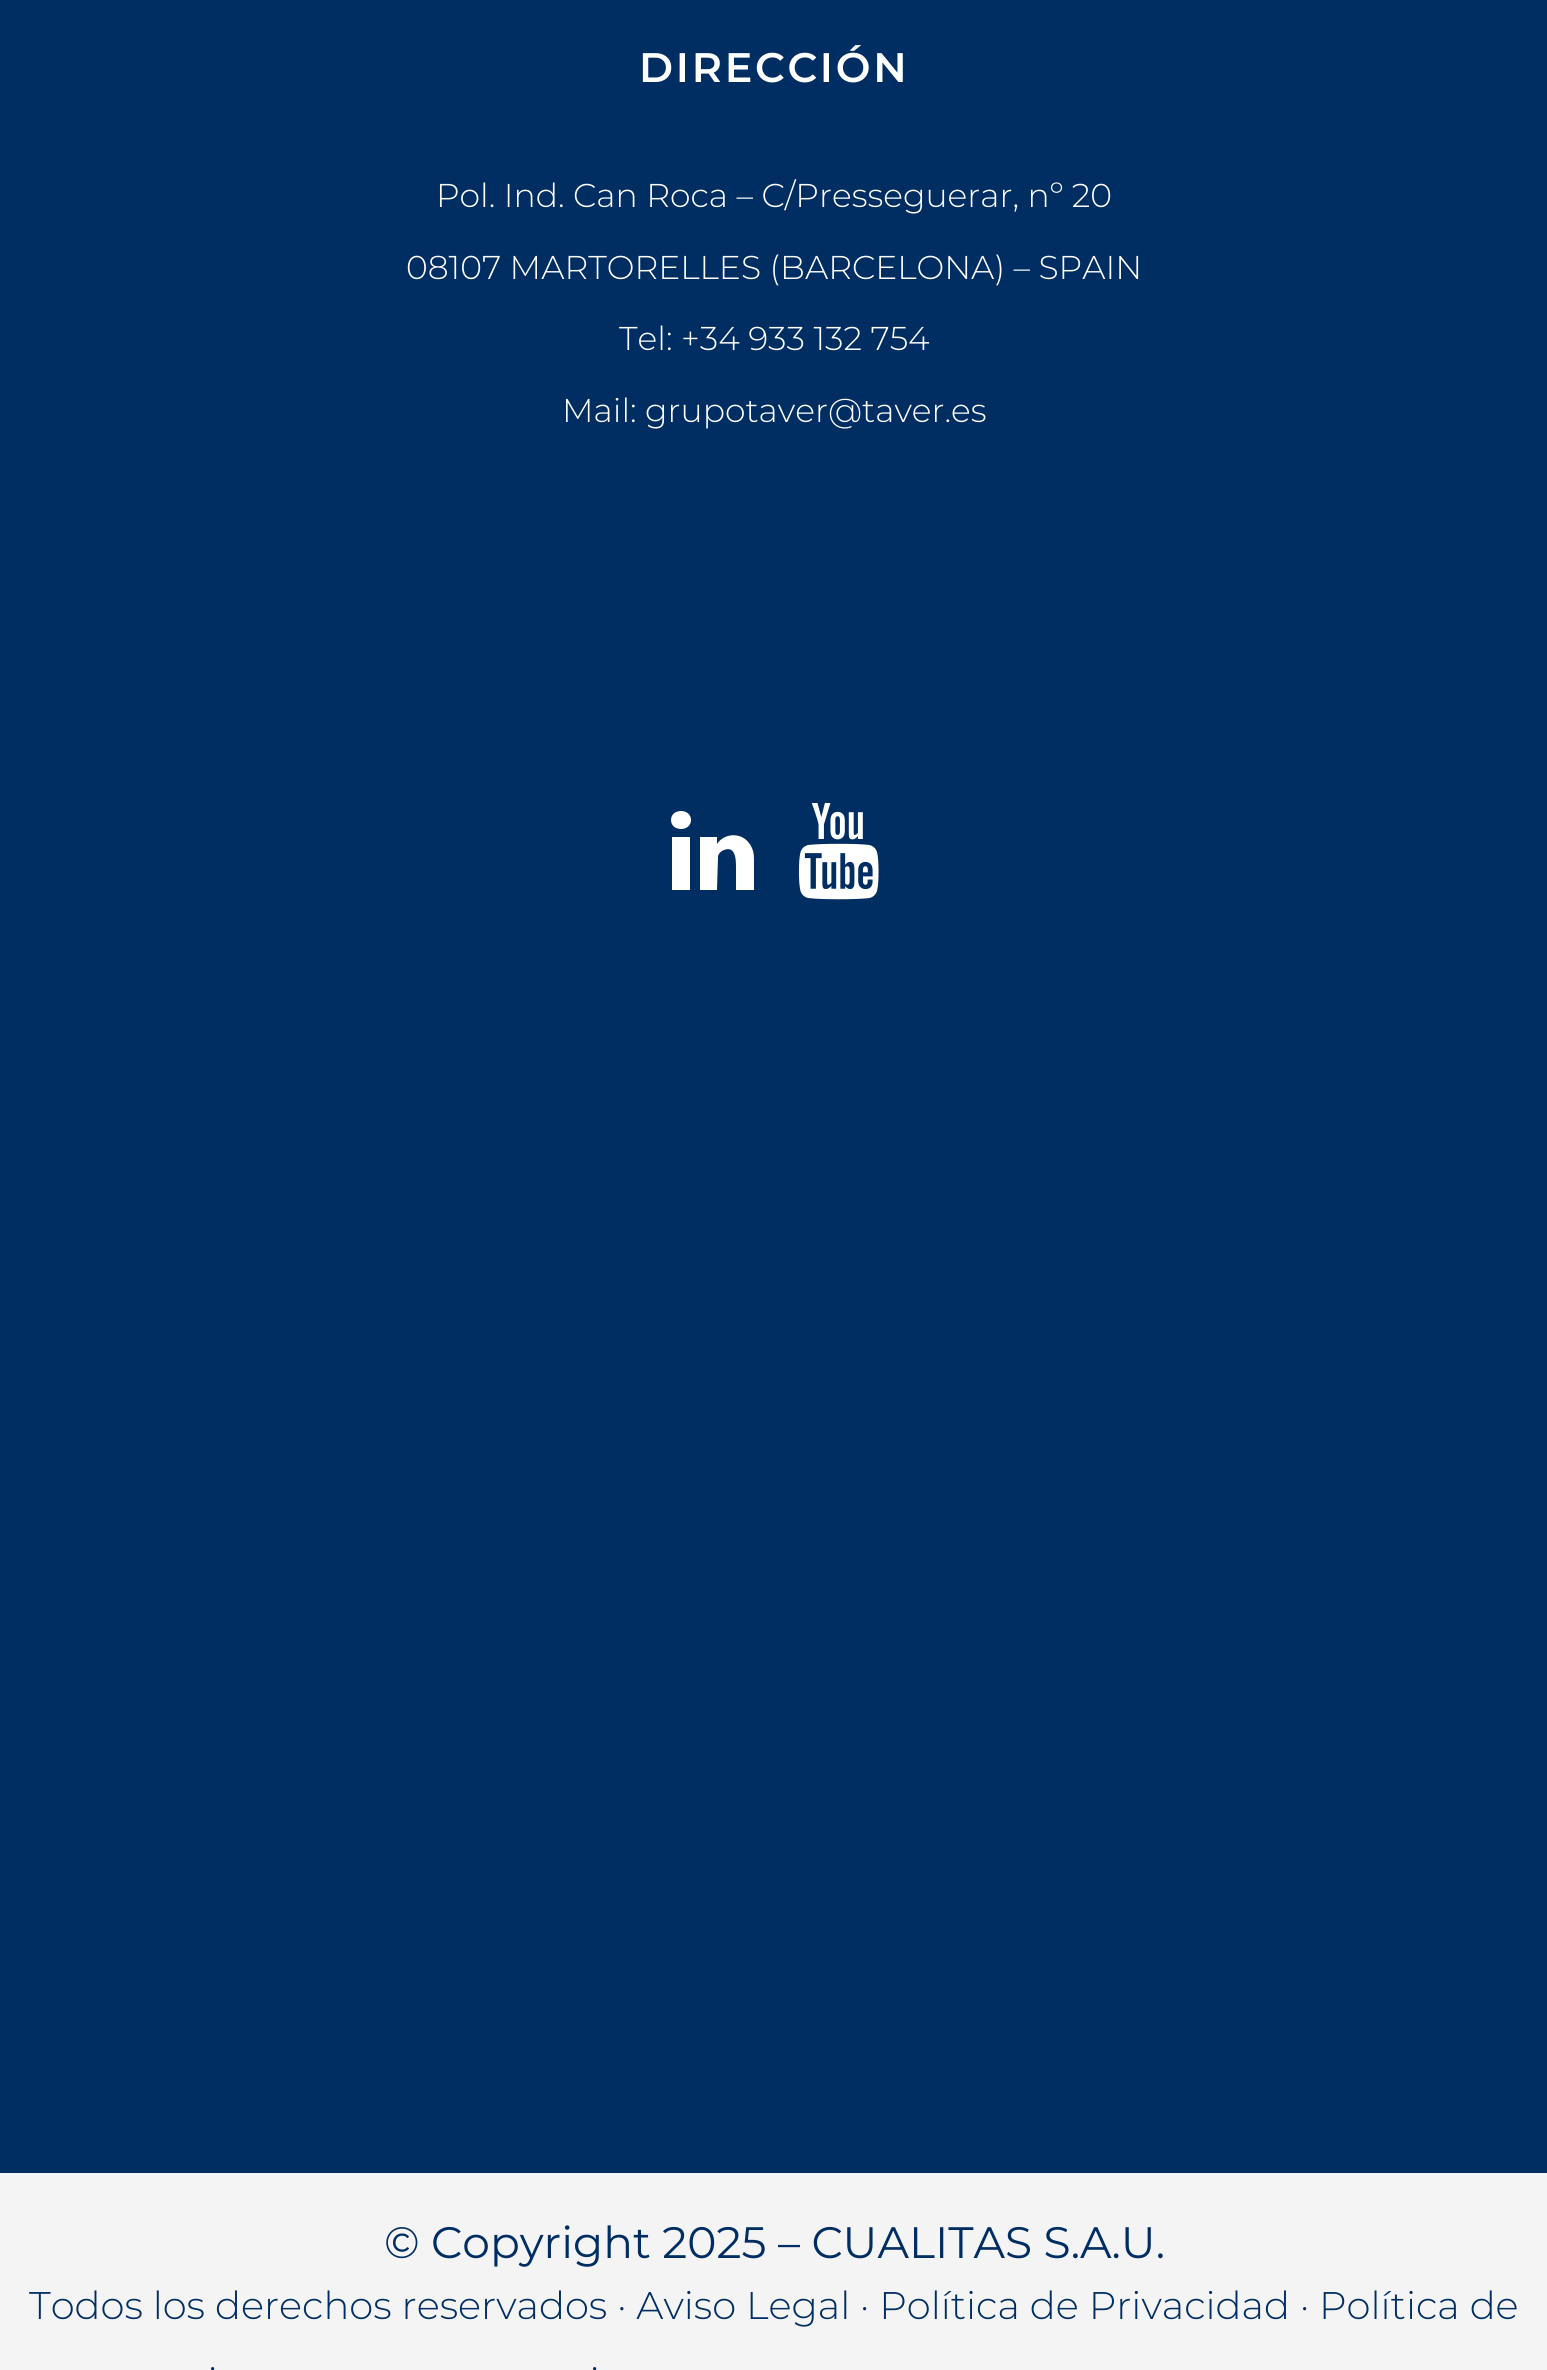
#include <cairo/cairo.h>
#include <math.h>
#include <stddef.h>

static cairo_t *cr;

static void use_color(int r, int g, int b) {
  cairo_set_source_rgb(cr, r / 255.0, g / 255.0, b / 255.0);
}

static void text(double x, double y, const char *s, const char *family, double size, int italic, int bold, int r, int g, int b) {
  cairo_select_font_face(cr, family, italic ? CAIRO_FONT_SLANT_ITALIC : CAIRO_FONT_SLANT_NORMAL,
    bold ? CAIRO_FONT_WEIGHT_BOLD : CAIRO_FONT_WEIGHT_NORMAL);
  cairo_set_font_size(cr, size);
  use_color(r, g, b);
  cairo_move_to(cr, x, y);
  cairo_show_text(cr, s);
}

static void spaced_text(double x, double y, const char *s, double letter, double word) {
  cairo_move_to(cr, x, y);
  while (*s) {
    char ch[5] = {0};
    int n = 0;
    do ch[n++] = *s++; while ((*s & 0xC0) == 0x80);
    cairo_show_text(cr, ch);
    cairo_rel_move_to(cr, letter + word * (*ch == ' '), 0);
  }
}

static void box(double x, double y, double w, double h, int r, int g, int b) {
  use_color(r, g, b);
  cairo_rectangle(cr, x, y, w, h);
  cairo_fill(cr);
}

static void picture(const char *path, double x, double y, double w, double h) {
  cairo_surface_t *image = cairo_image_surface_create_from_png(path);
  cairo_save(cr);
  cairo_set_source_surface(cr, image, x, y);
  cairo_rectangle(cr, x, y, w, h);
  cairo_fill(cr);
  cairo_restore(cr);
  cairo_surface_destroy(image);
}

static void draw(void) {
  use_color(244, 244, 244);
  cairo_paint(cr);
  box(0, 0, 1547, 2173, 0, 45, 98);
  use_color(255, 255, 255);
  cairo_new_path(cr);
  cairo_move_to(cr, 690, 837);
  cairo_line_to(cr, 690, 890);
  cairo_line_to(cr, 672, 890);
  cairo_line_to(cr, 672, 837);
  cairo_close_path(cr);
  cairo_move_to(cr, 691, 820);
  cairo_curve_to(cr, 691, 832, 671, 832, 671, 820);
  cairo_curve_to(cr, 671, 808, 691, 808, 691, 820);
  cairo_close_path(cr);
  cairo_move_to(cr, 754, 859);
  cairo_line_to(cr, 754, 890);
  cairo_line_to(cr, 736, 890);
  cairo_line_to(cr, 736, 871);
  cairo_curve_to(cr, 736, 863, 737, 845, 724, 850);
  cairo_curve_to(cr, 721, 851, 718, 854, 718, 857);
  cairo_line_to(cr, 717, 890);
  cairo_line_to(cr, 700, 890);
  cairo_line_to(cr, 700, 837);
  cairo_line_to(cr, 717, 837);
  cairo_line_to(cr, 717, 844);
  cairo_curve_to(cr, 724, 833, 741, 832, 749, 843);
  cairo_curve_to(cr, 753, 848, 754, 854, 754, 859);
  cairo_close_path(cr);
  cairo_fill(cr);
  picture("img_01.png", 798, 803, 81, 97);
  cairo_select_font_face(cr, "Montserrat SemiBold", CAIRO_FONT_SLANT_NORMAL, CAIRO_FONT_WEIGHT_NORMAL);
  cairo_set_font_size(cr, 41.25);
  spaced_text(639, 82, "DIRECCIÓN", 2.75, 0);
  text(436, 207, "Pol. Ind. Can Roca – C/Presseguerar, nº 20", "Montserrat Light", 33, 0, 0, 255, 255, 255);
  text(406, 279, "08107 MARTORELLES (BARCELONA) – SPAIN", "Montserrat Light", 33, 0, 0, 255, 255, 255);
  text(619, 350, "Tel: +34 933 132 754", "Montserrat Light", 33, 0, 0, 255, 255, 255);
  text(562, 422, "Mail: grupotaver@taver.es", "Montserrat Light", 33, 0, 0, 255, 255, 255);
  text(384, 2258, "© Copyright 2025 – CUALITAS S.A.U.", "Montserrat", 44, 0, 0, 0, 45, 98);
  text(29, 2319, "Todos los derechos reservados · Aviso Legal · Política de Privacidad · Política de", "Montserrat Light", 38.5, 0, 0, 0, 45, 98);
  text(208, 2379, "·", "Montserrat Light", 38.5, 0, 0, 0, 45, 98);
  text(590, 2379, "·", "Montserrat Light", 38.5, 0, 0, 0, 45, 98);
}

int main(void) {
  cairo_surface_t *surface = cairo_image_surface_create(CAIRO_FORMAT_RGB24, 1547, 2370);
  cr = cairo_create(surface);
  cairo_font_options_t *options = cairo_font_options_create();
  cairo_font_options_set_hint_metrics(options, CAIRO_HINT_METRICS_OFF);
  cairo_font_options_set_hint_style(options, CAIRO_HINT_STYLE_NONE);
  cairo_set_font_options(cr, options);
  cairo_set_miter_limit(cr, 4);
  draw();
  cairo_surface_write_to_png(surface, "out.png");
  cairo_font_options_destroy(options);
  cairo_destroy(cr);
  cairo_surface_destroy(surface);
  return 0;
}
